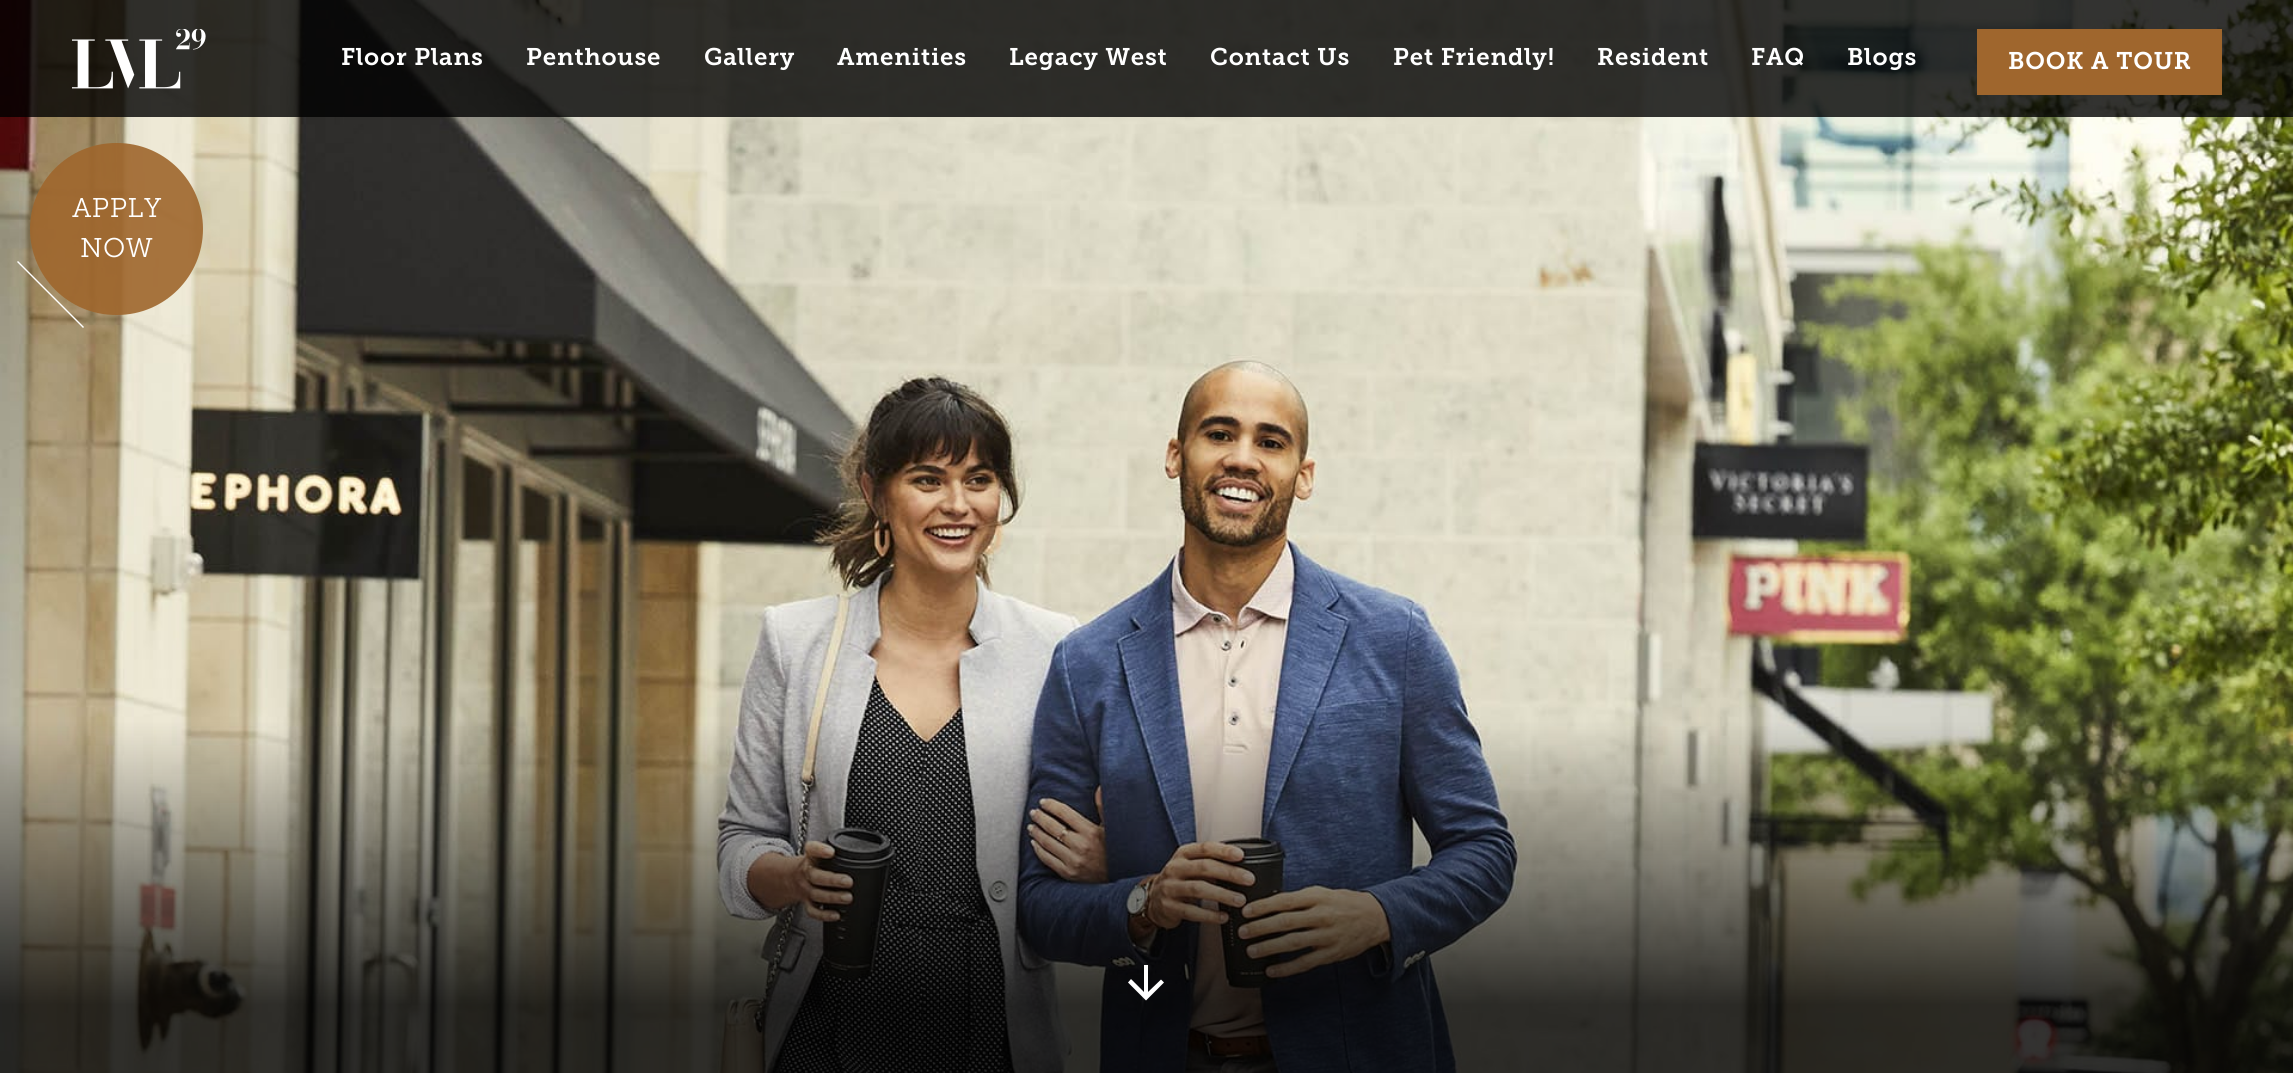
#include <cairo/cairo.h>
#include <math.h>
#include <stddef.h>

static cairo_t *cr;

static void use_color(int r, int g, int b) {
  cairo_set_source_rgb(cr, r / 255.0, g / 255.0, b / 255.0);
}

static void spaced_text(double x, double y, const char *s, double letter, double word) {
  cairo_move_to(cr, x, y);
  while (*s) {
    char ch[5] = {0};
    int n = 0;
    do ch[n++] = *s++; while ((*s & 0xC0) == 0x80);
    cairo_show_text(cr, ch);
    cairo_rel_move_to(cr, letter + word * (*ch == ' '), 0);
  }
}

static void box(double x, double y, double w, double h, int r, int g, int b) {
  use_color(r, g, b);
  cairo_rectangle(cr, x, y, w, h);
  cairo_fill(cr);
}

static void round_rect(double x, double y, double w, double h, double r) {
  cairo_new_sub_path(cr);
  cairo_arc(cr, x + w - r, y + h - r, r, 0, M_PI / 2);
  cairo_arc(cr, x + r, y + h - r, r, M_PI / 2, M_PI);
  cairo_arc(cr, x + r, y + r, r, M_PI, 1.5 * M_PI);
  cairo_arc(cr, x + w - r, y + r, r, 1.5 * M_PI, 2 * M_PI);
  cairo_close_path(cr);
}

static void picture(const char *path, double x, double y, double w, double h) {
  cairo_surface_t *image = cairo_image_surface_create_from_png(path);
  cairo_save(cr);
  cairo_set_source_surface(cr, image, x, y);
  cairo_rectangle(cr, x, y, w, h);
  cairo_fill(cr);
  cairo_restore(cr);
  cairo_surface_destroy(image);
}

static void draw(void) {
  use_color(255, 255, 255);
  cairo_paint(cr);
  picture("img_02.png", 0, 0, 2293, 1073);
  cairo_set_source_rgba(cr, 0, 0, 0, 0.8);
  cairo_rectangle(cr, 0, 0, 2293, 117);
  cairo_fill(cr);
  picture("img_01.png", 72, 29, 134, 60);
  box(1977, 29, 245, 66, 159, 102, 45);
  cairo_save(cr);
  cairo_rectangle(cr, 1128, 965, 36, 36);
  cairo_clip(cr);
  use_color(255, 255, 255);
  cairo_new_path(cr);
  cairo_move_to(cr, 1148, 964.5);
  cairo_line_to(cr, 1148, 992);
  cairo_line_to(cr, 1161, 979.5);
  cairo_line_to(cr, 1164, 982.5);
  cairo_line_to(cr, 1146, 1000.5);
  cairo_line_to(cr, 1128, 982.5);
  cairo_line_to(cr, 1131, 979);
  cairo_line_to(cr, 1144, 992);
  cairo_line_to(cr, 1144, 964.5);
  cairo_close_path(cr);
  cairo_fill(cr);
  cairo_restore(cr);
  cairo_set_source_rgba(cr, 0.624, 0.4, 0.176, 0.9);
  round_rect(30, 143, 173, 172, 86);
  cairo_fill(cr);
  use_color(255, 255, 255);
  cairo_new_path(cr);
  cairo_move_to(cr, 17, 262);
  cairo_line_to(cr, 18, 261);
  cairo_line_to(cr, 84, 327);
  cairo_line_to(cr, 83, 328);
  cairo_close_path(cr);
  cairo_fill(cr);
  cairo_select_font_face(cr, "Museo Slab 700 SemiBold", CAIRO_FONT_SLANT_NORMAL, CAIRO_FONT_WEIGHT_NORMAL);
  cairo_set_font_size(cr, 24);
  spaced_text(341, 65, "Floor Plans", 0.8, 0);
  spaced_text(526, 65, "Penthouse", 0.8, 0);
  spaced_text(704, 65, "Gallery", 0.8, 0);
  spaced_text(837, 65, "Amenities", 0.8, 0);
  spaced_text(1009, 65, "Legacy West", 0.8, 0);
  spaced_text(1210, 65, "Contact Us", 0.8, 0);
  spaced_text(1393, 65, "Pet Friendly!", 0.8, 0);
  spaced_text(1597, 65, "Resident", 0.8, 0);
  spaced_text(1751, 65, "FAQ", 0.8, 0);
  spaced_text(1847, 65, "Blogs", 0.8, 0);
  spaced_text(2008, 69, "BOOK A TOUR", 0.8, 0);
  cairo_select_font_face(cr, "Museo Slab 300 Light", CAIRO_FONT_SLANT_NORMAL, CAIRO_FONT_WEIGHT_NORMAL);
  cairo_set_font_size(cr, 27);
  spaced_text(72, 217, "APPLY", 0.5, 0);
  spaced_text(80, 257, "NOW", 0.5, 0);
}

int main(void) {
  cairo_surface_t *surface = cairo_image_surface_create(CAIRO_FORMAT_RGB24, 2293, 1073);
  cr = cairo_create(surface);
  cairo_font_options_t *options = cairo_font_options_create();
  cairo_font_options_set_hint_metrics(options, CAIRO_HINT_METRICS_OFF);
  cairo_font_options_set_hint_style(options, CAIRO_HINT_STYLE_NONE);
  cairo_set_font_options(cr, options);
  cairo_set_miter_limit(cr, 4);
  draw();
  cairo_surface_write_to_png(surface, "out.png");
  cairo_font_options_destroy(options);
  cairo_destroy(cr);
  cairo_surface_destroy(surface);
  return 0;
}
